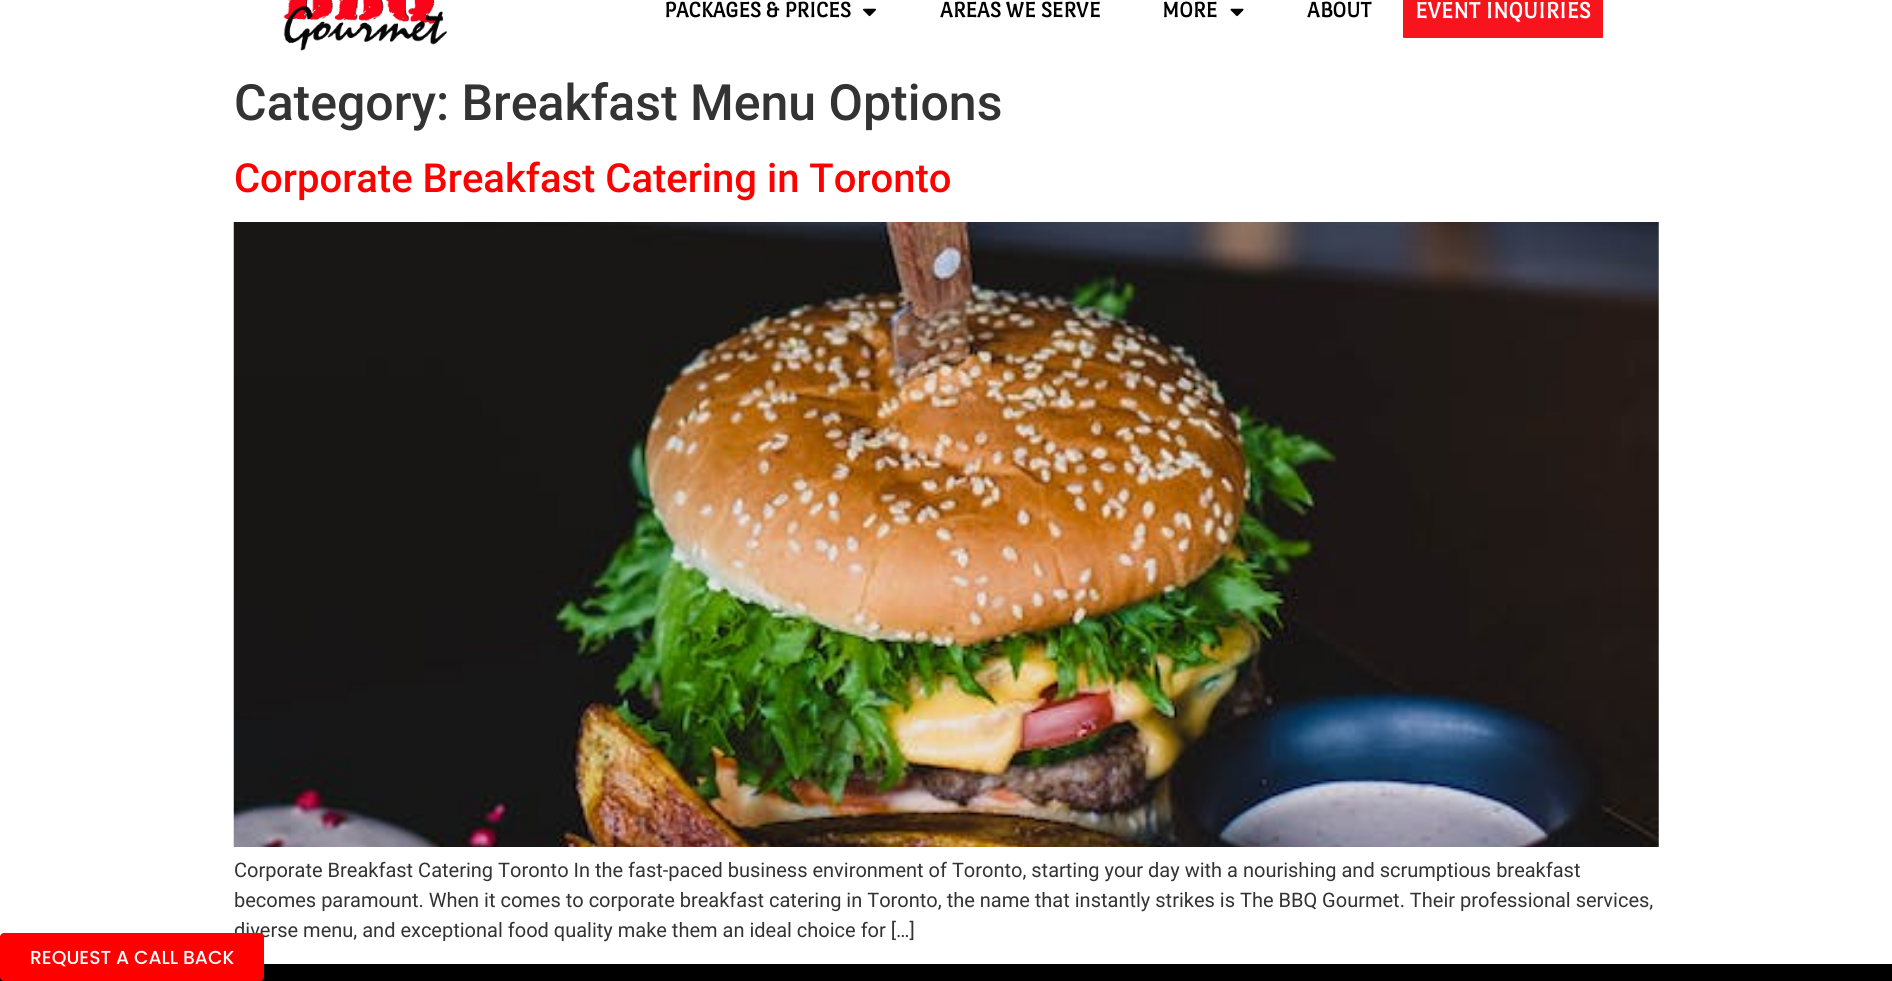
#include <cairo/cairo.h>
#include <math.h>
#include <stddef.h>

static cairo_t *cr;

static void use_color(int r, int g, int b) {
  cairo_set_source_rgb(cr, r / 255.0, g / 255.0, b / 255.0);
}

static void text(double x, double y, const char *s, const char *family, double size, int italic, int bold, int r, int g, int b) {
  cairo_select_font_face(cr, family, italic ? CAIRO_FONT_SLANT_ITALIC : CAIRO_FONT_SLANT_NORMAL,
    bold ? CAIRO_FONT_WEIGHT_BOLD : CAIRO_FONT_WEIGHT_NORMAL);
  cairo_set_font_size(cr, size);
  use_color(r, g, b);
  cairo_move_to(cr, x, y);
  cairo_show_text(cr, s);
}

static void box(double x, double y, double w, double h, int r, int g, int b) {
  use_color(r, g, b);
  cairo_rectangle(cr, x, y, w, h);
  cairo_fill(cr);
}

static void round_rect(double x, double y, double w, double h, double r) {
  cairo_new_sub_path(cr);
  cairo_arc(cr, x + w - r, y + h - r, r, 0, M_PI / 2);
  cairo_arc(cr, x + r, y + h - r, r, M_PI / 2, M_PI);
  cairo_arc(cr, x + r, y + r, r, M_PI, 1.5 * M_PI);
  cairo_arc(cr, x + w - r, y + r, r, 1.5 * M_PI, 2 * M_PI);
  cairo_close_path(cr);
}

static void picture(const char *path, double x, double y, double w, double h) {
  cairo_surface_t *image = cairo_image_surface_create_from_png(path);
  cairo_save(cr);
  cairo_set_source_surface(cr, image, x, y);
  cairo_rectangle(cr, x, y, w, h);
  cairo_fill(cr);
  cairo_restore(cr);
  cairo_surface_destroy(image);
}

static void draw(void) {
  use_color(255, 255, 255);
  cairo_paint(cr);
  picture("img_01.png", 283, 0, 165, 51);
  picture("img_02.png", 863, 8, 13, 9);
  picture("img_03.png", 1230, 8, 14, 9);
  use_color(247, 20, 29);
  round_rect(1403, -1, 200, 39, 1);
  cairo_fill(cr);
  picture("img_04.png", 233, 222, 1426, 625);
  box(0, 964, 1892, 17, 0, 0, 0);
  text(664, 17, "PACKAGES & PRICES", "Port Lligat Sans", 22.5, 0, 1, 0, 0, 0);
  text(940, 17, "AREAS WE SERVE", "Port Lligat Sans", 22.5, 0, 1, 0, 0, 0);
  text(1162, 17, "MORE", "Port Lligat Sans", 22.5, 0, 1, 0, 0, 0);
  text(1307, 17, "ABOUT", "Port Lligat Sans", 22.5, 0, 1, 0, 0, 0);
  text(1415, 18, "EVENT INQUIRIES", "Port Lligat Sans", 23.75, 0, 1, 255, 255, 255);
  text(234, 120, "Category: Breakfast Menu Options", "Roboto Medium", 50, 0, 0, 51, 51, 51);
  text(234, 192, "Corporate Breakfast Catering in Toronto", "Roboto Medium", 40, 0, 0, 255, 0, 0);
  text(234, 877, "Corporate Breakfast Catering Toronto In the fast-paced business environment of Toronto, starting your day with a nourishing and scrumptious breakfast", "Roboto", 20, 0, 0, 51, 51, 51);
  text(234, 907, "becomes paramount. When it comes to corporate breakfast catering in Toronto, the name that instantly strikes is The BBQ Gourmet. Their professional services,", "Roboto", 20, 0, 0, 51, 51, 51);
  text(234, 937, "diverse menu, and exceptional food quality make them an ideal choice for […]", "Roboto", 20, 0, 0, 51, 51, 51);
  use_color(255, 0, 0);
  round_rect(0, 933, 264, 48, 4);
  cairo_fill(cr);
  text(30, 964, "REQUEST A CALL BACK", "Poppins Medium", 18.75, 0, 0, 255, 255, 255);
}

int main(void) {
  cairo_surface_t *surface = cairo_image_surface_create(CAIRO_FORMAT_RGB24, 1892, 981);
  cr = cairo_create(surface);
  cairo_font_options_t *options = cairo_font_options_create();
  cairo_font_options_set_hint_metrics(options, CAIRO_HINT_METRICS_OFF);
  cairo_font_options_set_hint_style(options, CAIRO_HINT_STYLE_NONE);
  cairo_set_font_options(cr, options);
  cairo_set_miter_limit(cr, 4);
  draw();
  cairo_surface_write_to_png(surface, "out.png");
  cairo_font_options_destroy(options);
  cairo_destroy(cr);
  cairo_surface_destroy(surface);
  return 0;
}
